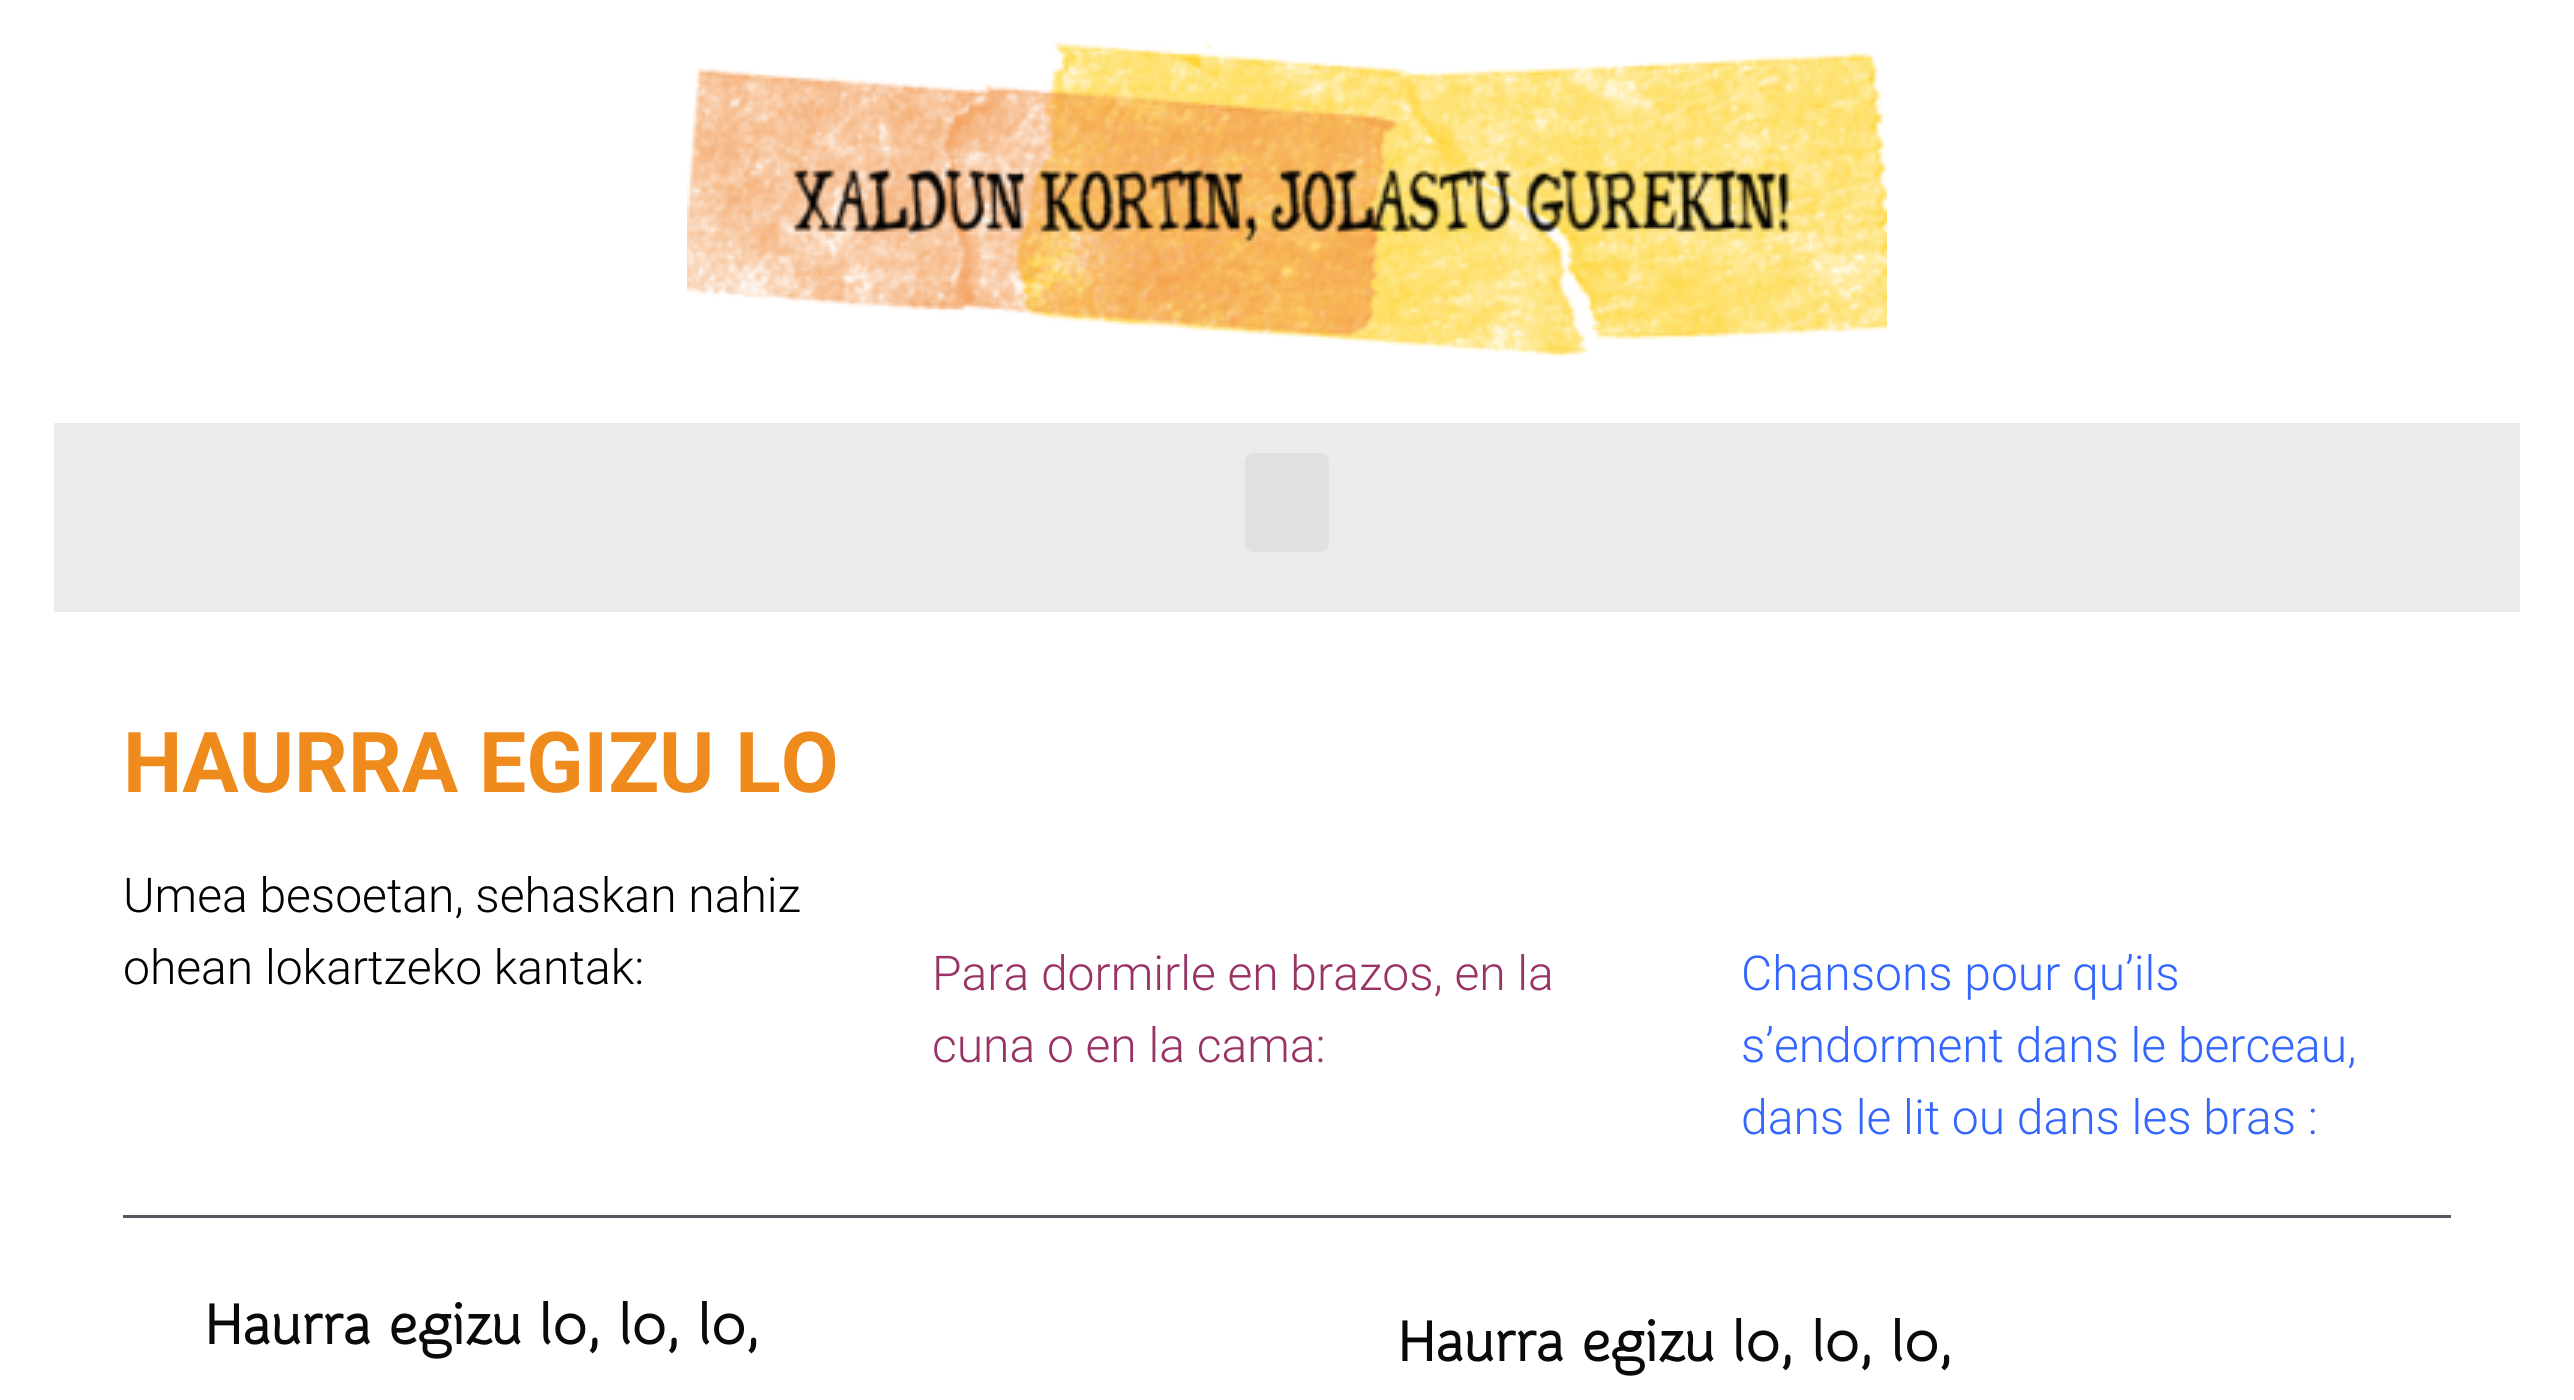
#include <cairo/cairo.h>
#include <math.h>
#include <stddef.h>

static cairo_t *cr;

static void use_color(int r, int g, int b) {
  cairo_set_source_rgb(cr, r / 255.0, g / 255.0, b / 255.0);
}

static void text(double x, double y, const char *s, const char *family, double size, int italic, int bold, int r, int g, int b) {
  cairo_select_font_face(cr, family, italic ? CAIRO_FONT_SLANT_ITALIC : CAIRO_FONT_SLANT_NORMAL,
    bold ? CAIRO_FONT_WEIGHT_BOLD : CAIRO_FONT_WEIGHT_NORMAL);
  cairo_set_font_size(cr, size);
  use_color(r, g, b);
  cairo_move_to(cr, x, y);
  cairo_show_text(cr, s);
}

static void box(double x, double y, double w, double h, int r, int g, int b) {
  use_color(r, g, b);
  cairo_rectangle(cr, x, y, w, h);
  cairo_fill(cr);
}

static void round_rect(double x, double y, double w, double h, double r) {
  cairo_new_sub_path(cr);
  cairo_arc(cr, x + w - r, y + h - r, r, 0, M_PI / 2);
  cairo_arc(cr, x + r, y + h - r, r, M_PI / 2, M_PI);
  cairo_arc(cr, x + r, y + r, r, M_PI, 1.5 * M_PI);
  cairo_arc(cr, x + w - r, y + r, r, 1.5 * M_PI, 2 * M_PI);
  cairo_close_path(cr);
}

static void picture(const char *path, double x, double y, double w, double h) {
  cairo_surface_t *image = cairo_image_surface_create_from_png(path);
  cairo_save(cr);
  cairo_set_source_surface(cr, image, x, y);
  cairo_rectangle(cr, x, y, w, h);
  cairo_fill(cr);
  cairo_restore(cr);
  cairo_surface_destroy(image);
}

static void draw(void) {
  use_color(255, 255, 255);
  cairo_paint(cr);
  picture("img_01.png", 687, 41, 1200, 317);
  box(54, 423, 2466, 189, 236, 236, 236);
  use_color(224, 224, 224);
  round_rect(1245, 453, 84, 99, 9);
  cairo_fill(cr);
  box(123, 1215, 2328, 3, 84, 89, 95);
  text(123, 792, "HAURRA EGIZU LO", "Roboto", 84, 0, 1, 239, 138, 28);
  text(123, 912, "Umea besoetan, sehaskan nahiz", "Roboto Light", 48, 0, 0, 0, 0, 0);
  text(123, 984, "ohean lokartzeko kantak:", "Roboto Light", 48, 0, 0, 0, 0, 0);
  text(932, 990, "Para dormirle en brazos, en la", "Roboto Light", 48, 0, 0, 153, 51, 102);
  text(932, 1062, "cuna o en la cama:", "Roboto Light", 48, 0, 0, 153, 51, 102);
  text(1741, 990, "Chansons pour qu’ils", "Roboto Light", 48, 0, 0, 51, 102, 255);
  text(1741, 1062, "s’endorment dans le berceau,", "Roboto Light", 48, 0, 0, 51, 102, 255);
  text(1741, 1134, "dans le lit ou dans les bras :", "Roboto Light", 48, 0, 0, 51, 102, 255);
  text(204, 1344, "Haurra egizu lo, lo, lo,", "Snippet", 57, 0, 1, 10, 10, 10);
  text(1397, 1361, "Haurra egizu lo, lo, lo,", "Snippet", 57, 0, 1, 10, 10, 10);
}

int main(void) {
  cairo_surface_t *surface = cairo_image_surface_create(CAIRO_FORMAT_RGB24, 2574, 1400);
  cr = cairo_create(surface);
  cairo_font_options_t *options = cairo_font_options_create();
  cairo_font_options_set_hint_metrics(options, CAIRO_HINT_METRICS_OFF);
  cairo_font_options_set_hint_style(options, CAIRO_HINT_STYLE_NONE);
  cairo_set_font_options(cr, options);
  cairo_set_miter_limit(cr, 4);
  draw();
  cairo_surface_write_to_png(surface, "out.png");
  cairo_font_options_destroy(options);
  cairo_destroy(cr);
  cairo_surface_destroy(surface);
  return 0;
}
